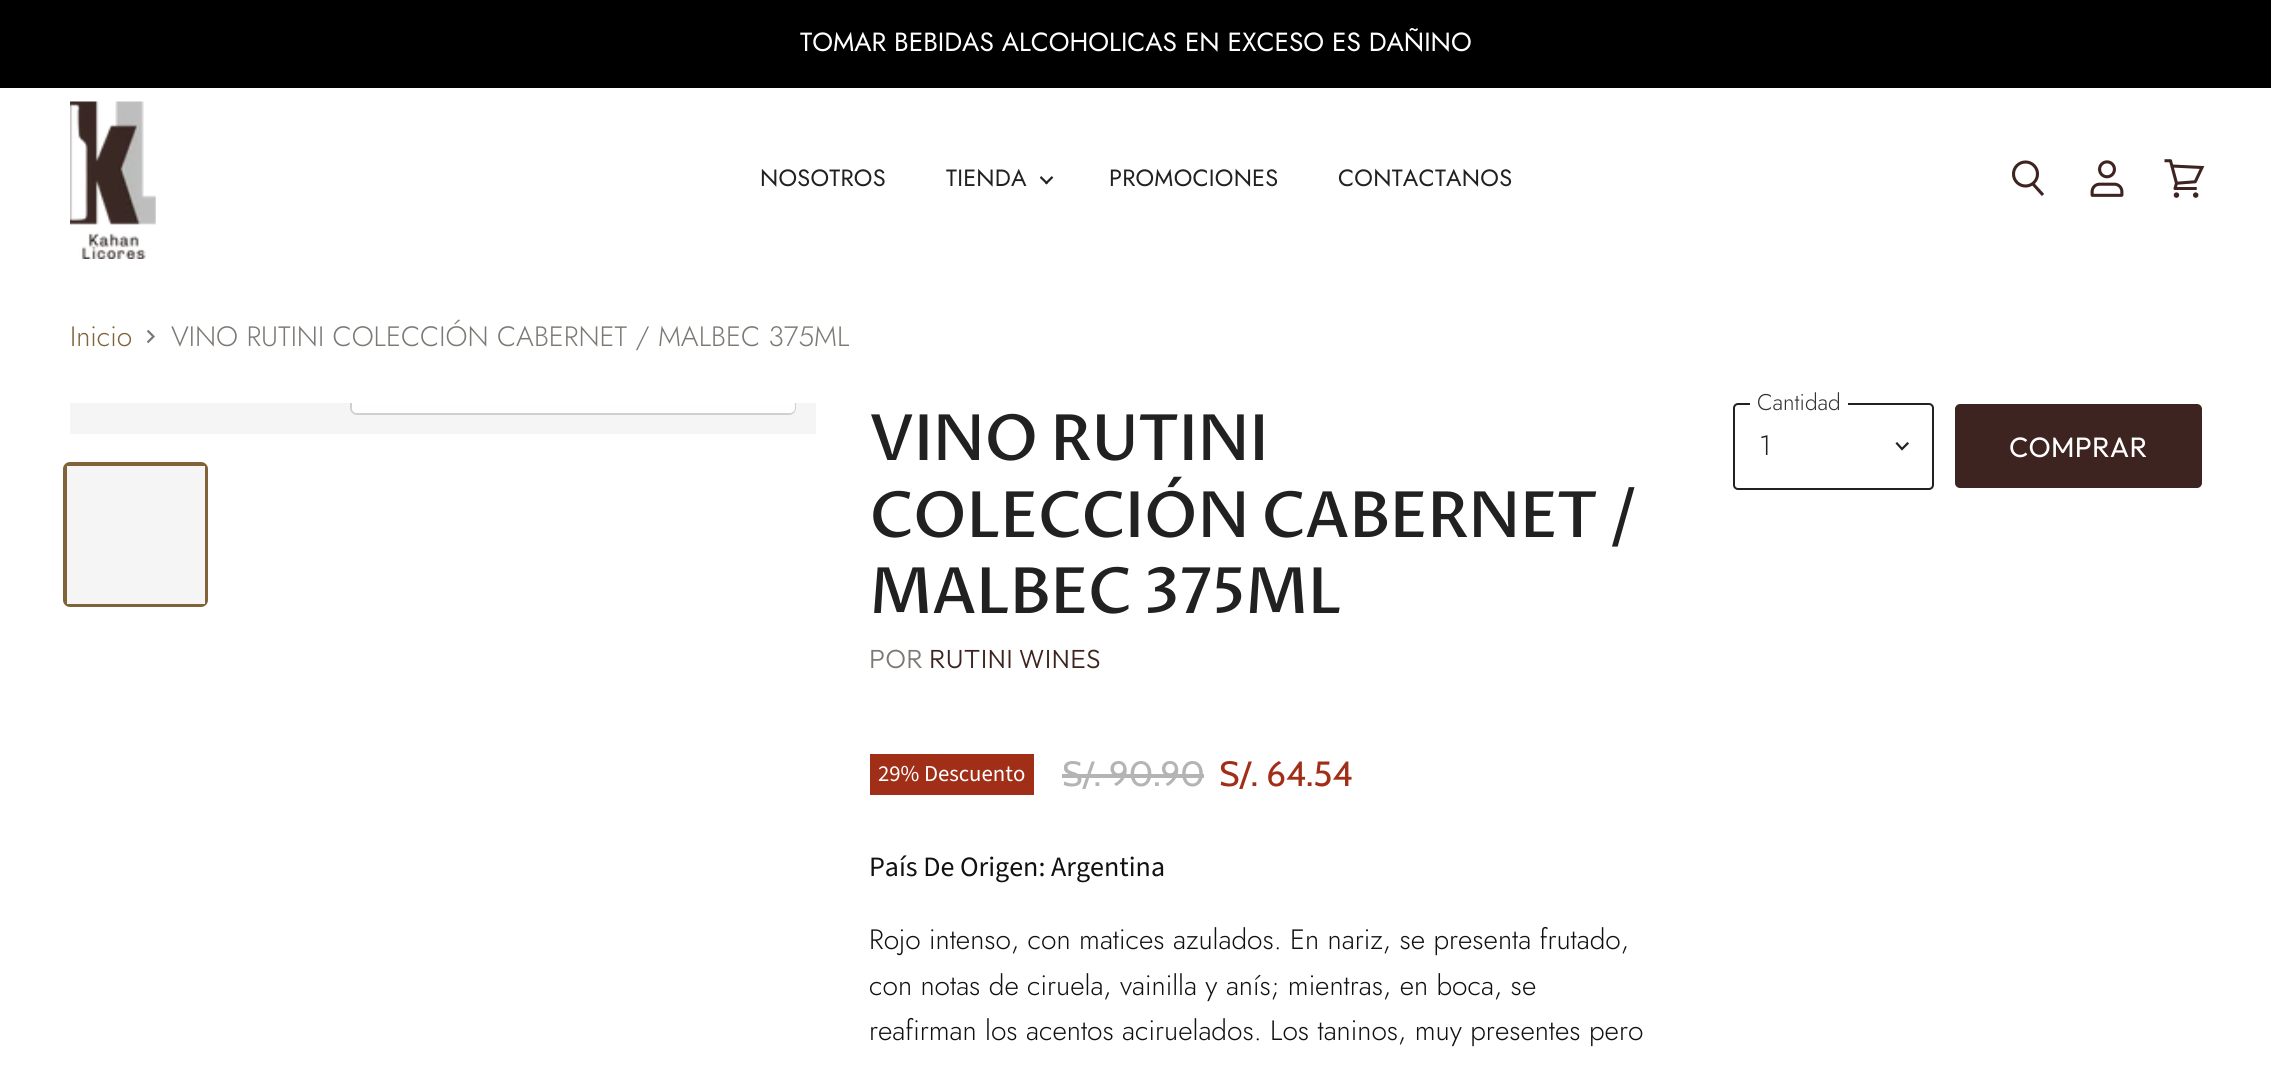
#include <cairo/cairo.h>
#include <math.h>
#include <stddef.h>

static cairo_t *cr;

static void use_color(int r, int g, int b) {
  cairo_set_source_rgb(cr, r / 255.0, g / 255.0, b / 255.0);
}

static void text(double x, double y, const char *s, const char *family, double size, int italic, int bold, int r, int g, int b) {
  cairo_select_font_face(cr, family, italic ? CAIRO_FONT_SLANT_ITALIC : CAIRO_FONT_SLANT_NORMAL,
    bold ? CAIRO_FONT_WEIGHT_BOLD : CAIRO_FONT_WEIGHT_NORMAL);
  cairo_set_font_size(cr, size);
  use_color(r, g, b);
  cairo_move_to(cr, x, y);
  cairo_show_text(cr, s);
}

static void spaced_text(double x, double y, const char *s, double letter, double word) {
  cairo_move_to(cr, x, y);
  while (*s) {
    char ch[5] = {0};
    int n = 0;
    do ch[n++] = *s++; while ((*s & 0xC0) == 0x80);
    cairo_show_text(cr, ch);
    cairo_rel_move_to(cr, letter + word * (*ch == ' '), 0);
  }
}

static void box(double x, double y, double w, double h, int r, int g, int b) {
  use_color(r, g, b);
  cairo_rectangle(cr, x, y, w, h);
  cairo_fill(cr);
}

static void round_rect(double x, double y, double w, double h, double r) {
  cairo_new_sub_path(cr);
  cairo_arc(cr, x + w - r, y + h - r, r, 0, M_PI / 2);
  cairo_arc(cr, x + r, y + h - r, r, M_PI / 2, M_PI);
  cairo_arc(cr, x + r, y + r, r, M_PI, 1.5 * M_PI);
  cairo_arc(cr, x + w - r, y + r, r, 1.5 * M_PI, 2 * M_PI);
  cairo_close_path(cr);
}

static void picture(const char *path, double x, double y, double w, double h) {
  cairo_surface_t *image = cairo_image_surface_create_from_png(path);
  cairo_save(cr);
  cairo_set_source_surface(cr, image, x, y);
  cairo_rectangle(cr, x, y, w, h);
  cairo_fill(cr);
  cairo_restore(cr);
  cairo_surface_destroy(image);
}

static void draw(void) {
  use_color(255, 255, 255);
  cairo_paint(cr);
  box(0, 0, 2271, 88, 0, 0, 0);
  picture("img_01.png", 70, 101, 86, 158);
  picture("img_02.png", 1040, 176, 14, 9);
  cairo_new_path(cr);
  cairo_move_to(cr, 2043, 195);
  cairo_line_to(cr, 2033, 184);
  use_color(62, 36, 32);
  cairo_set_line_width(cr, 3.1);
  cairo_stroke(cr);
  cairo_arc(cr, 2025.5, 174, 12, 0, 2 * M_PI);
  cairo_stroke(cr);
  picture("img_03.png", 2090, 160, 34, 37);
  picture("img_04.png", 2164, 159, 41, 39);
  cairo_save(cr);
  cairo_new_path(cr);
  cairo_move_to(cr, 147, 344);
  cairo_line_to(cr, 147, 330);
  cairo_line_to(cr, 156, 330);
  cairo_line_to(cr, 156, 344);
  cairo_close_path(cr);
  cairo_clip(cr);
  cairo_new_path(cr);
  cairo_move_to(cr, 147.5, 342.5);
  cairo_line_to(cr, 153.5, 336.5);
  cairo_line_to(cr, 147.5, 330.5);
  use_color(124, 120, 115);
  cairo_set_line_width(cr, 2.2);
  cairo_stroke(cr);
  cairo_restore(cr);
  box(70, 403, 746, 31, 245, 245, 245);
  cairo_save(cr);
  cairo_rectangle(cr, 70, 403, 746, 31);
  cairo_clip(cr);
  round_rect(351, 363, 444, 51, 6);
  use_color(208, 208, 208);
  cairo_set_line_width(cr, 2);
  cairo_stroke(cr);
  cairo_restore(cr);
  cairo_set_source_rgba(cr, 1, 1, 1, 0.9);
  cairo_new_path(cr);
  cairo_move_to(cr, 352, 403);
  cairo_line_to(cr, 795, 403);
  cairo_line_to(cr, 795, 408);
  cairo_curve_to(cr, 795, 411, 793, 413, 790, 413);
  cairo_line_to(cr, 357, 413);
  cairo_curve_to(cr, 354, 413, 352, 411, 352, 408);
  cairo_close_path(cr);
  cairo_fill(cr);
  round_rect(65, 464, 141, 141, 5);
  use_color(129, 99, 57);
  cairo_set_line_width(cr, 4);
  cairo_stroke(cr);
  box(67, 466, 138, 138, 245, 245, 245);
  box(870, 754, 164, 41, 161, 47, 24);
  box(1062, 774, 142, 4, 180, 180, 180);
  round_rect(1734, 404, 199, 85, 4);
  use_color(33, 33, 33);
  cairo_set_line_width(cr, 2);
  cairo_stroke(cr);
  box(1750, 403, 98, 2, 255, 255, 255);
  cairo_new_path(cr);
  cairo_move_to(cr, 1902, 449);
  cairo_line_to(cr, 1907.5, 443.5);
  cairo_move_to(cr, 1902, 449);
  cairo_line_to(cr, 1897, 443.5);
  use_color(33, 33, 33);
  cairo_set_line_width(cr, 2.2);
  cairo_set_line_cap(cr, CAIRO_LINE_CAP_SQUARE);
  cairo_stroke(cr);
  use_color(62, 36, 32);
  round_rect(1956, 405, 245, 82, 4);
  cairo_fill_preserve(cr);
  cairo_set_line_width(cr, 2);
  cairo_set_line_cap(cr, CAIRO_LINE_CAP_BUTT);
  cairo_stroke(cr);
  text(800, 51, "TOMAR BEBIDAS ALCOHOLICAS EN EXCESO ES DAÑINO", "Jost", 26.25, 0, 0, 255, 255, 255);
  cairo_set_font_size(cr, 23.5);
  use_color(33, 33, 33);
  spaced_text(760, 186, "NOSOTROS", 0.25, 0);
  spaced_text(946, 186, "TIENDA", 0.25, 0);
  spaced_text(1109, 186, "PROMOCIONES", 0.25, 0);
  spaced_text(1338, 186, "CONTACTANOS", 0.25, 0);
  text(70, 346, "Inicio", "Jost Light", 28, 0, 0, 129, 99, 57);
  text(171, 346, "VINO RUTINI COLECCIÓN CABERNET / MALBEC 375ML", "Jost Light", 28, 0, 0, 124, 120, 115);
  cairo_select_font_face(cr, "Proza Libre Medium", CAIRO_FONT_SLANT_NORMAL, CAIRO_FONT_WEIGHT_NORMAL);
  cairo_set_font_size(cr, 63.75);
  use_color(33, 33, 33);
  spaced_text(869, 460, "VINO RUTINI", -1.25, 0);
  spaced_text(869, 537, "COLECCIÓN CABERNET /", -1.25, 0);
  spaced_text(869, 613, "MALBEC 375ML", -1.25, 0);
  cairo_select_font_face(cr, "Outfit Light", CAIRO_FONT_SLANT_NORMAL, CAIRO_FONT_WEIGHT_NORMAL);
  cairo_set_font_size(cr, 26.25);
  use_color(124, 120, 115);
  spaced_text(869, 668, "POR", 0.25, 0);
  use_color(62, 36, 32);
  spaced_text(929, 668, "RUTINI WINES", 0.25, 0);
  text(878, 781, "29% Descuento", "Source Sans Pro", 22.75, 0, 0, 255, 255, 255);
  text(1062, 786, "S/. 90.90", "Cabin", 35, 0, 0, 180, 180, 180);
  text(1219, 786, "S/. 64.54", "Cabin", 35, 0, 0, 161, 47, 24);
  text(869, 876, "País De Origen: Argentina", "Source Sans Pro", 28, 0, 0, 17, 17, 17);
  text(869, 949, "Rojo intenso, con matices azulados. En nariz, se presenta frutado,", "Jost Light", 28, 0, 0, 17, 17, 17);
  text(869, 995, "con notas de ciruela, vainilla y anís; mientras, en boca, se", "Jost Light", 28, 0, 0, 17, 17, 17);
  text(869, 1040, "reafirman los acentos aciruelados. Los taninos, muy presentes pero", "Jost Light", 28, 0, 0, 17, 17, 17);
  text(1757, 410, "Cantidad", "Jost Light", 22.75, 0, 0, 51, 51, 51);
  text(1759, 455, "1", "Jost Light", 28, 0, 0, 33, 33, 33);
  cairo_select_font_face(cr, "Outfit", CAIRO_FONT_SLANT_NORMAL, CAIRO_FONT_WEIGHT_NORMAL);
  use_color(255, 255, 255);
  spaced_text(2009, 457, "COMPRAR", 0.25, 0);
}

int main(void) {
  cairo_surface_t *surface = cairo_image_surface_create(CAIRO_FORMAT_RGB24, 2271, 1080);
  cr = cairo_create(surface);
  cairo_font_options_t *options = cairo_font_options_create();
  cairo_font_options_set_hint_metrics(options, CAIRO_HINT_METRICS_OFF);
  cairo_font_options_set_hint_style(options, CAIRO_HINT_STYLE_NONE);
  cairo_set_font_options(cr, options);
  cairo_set_miter_limit(cr, 4);
  draw();
  cairo_surface_write_to_png(surface, "out.png");
  cairo_font_options_destroy(options);
  cairo_destroy(cr);
  cairo_surface_destroy(surface);
  return 0;
}
